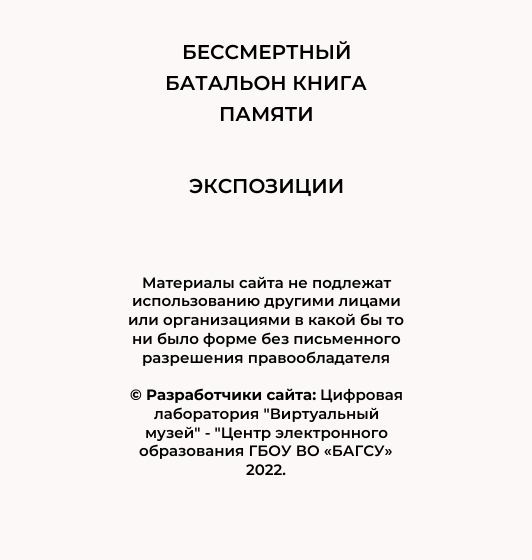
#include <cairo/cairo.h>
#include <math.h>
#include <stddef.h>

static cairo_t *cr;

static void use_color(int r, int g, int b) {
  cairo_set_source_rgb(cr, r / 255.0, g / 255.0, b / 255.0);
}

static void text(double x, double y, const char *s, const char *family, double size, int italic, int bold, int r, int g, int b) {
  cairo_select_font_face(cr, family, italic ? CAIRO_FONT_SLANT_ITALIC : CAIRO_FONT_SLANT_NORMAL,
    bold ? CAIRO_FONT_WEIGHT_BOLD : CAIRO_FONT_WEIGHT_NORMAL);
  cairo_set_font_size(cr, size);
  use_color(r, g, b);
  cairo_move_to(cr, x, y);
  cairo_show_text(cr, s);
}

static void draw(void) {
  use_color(251, 248, 247);
  cairo_paint(cr);
  text(182, 59, "БЕССМЕРТНЫЙ", "Montserrat SemiBold", 20, 0, 0, 0, 0, 0);
  text(165, 90, "БАТАЛЬОН КНИГА", "Montserrat SemiBold", 20, 0, 0, 0, 0, 0);
  text(219, 121, "ПАМЯТИ", "Montserrat SemiBold", 20, 0, 0, 0, 0, 0);
  text(189, 193, "ЭКСПОЗИЦИИ", "Montserrat SemiBold", 20, 0, 0, 0, 0, 0);
  text(142, 288, "Материалы сайта не подлежат", "Montserrat SemiBold", 15, 0, 0, 0, 0, 0);
  text(132, 306, "использованию другими лицами", "Montserrat SemiBold", 15, 0, 0, 0, 0, 0);
  text(128, 325, "или организациями в какой бы то", "Montserrat SemiBold", 15, 0, 0, 0, 0, 0);
  text(132, 344, "ни было форме без письменного", "Montserrat SemiBold", 15, 0, 0, 0, 0, 0);
  text(142, 363, "разрешения правообладателя", "Montserrat SemiBold", 15, 0, 0, 0, 0, 0);
  text(130, 400, "© Разработчики сайта:", "Montserrat", 15, 0, 1, 0, 0, 0);
  text(320, 400, "Цифровая", "Montserrat SemiBold", 15, 0, 0, 0, 0, 0);
  text(154, 419, "лаборатория \"Виртуальный", "Montserrat SemiBold", 15, 0, 0, 0, 0, 0);
  text(145, 438, "музей\" - \"Центр электронного", "Montserrat SemiBold", 15, 0, 0, 0, 0, 0);
  text(139, 456, "образования ГБОУ ВО «БАГСУ»", "Montserrat SemiBold", 15, 0, 0, 0, 0, 0);
  text(246, 475, "2022.", "Montserrat SemiBold", 15, 0, 0, 0, 0, 0);
}

int main(void) {
  cairo_surface_t *surface = cairo_image_surface_create(CAIRO_FORMAT_RGB24, 532, 560);
  cr = cairo_create(surface);
  cairo_font_options_t *options = cairo_font_options_create();
  cairo_font_options_set_hint_metrics(options, CAIRO_HINT_METRICS_OFF);
  cairo_font_options_set_hint_style(options, CAIRO_HINT_STYLE_NONE);
  cairo_set_font_options(cr, options);
  cairo_set_miter_limit(cr, 4);
  draw();
  cairo_surface_write_to_png(surface, "out.png");
  cairo_font_options_destroy(options);
  cairo_destroy(cr);
  cairo_surface_destroy(surface);
  return 0;
}
